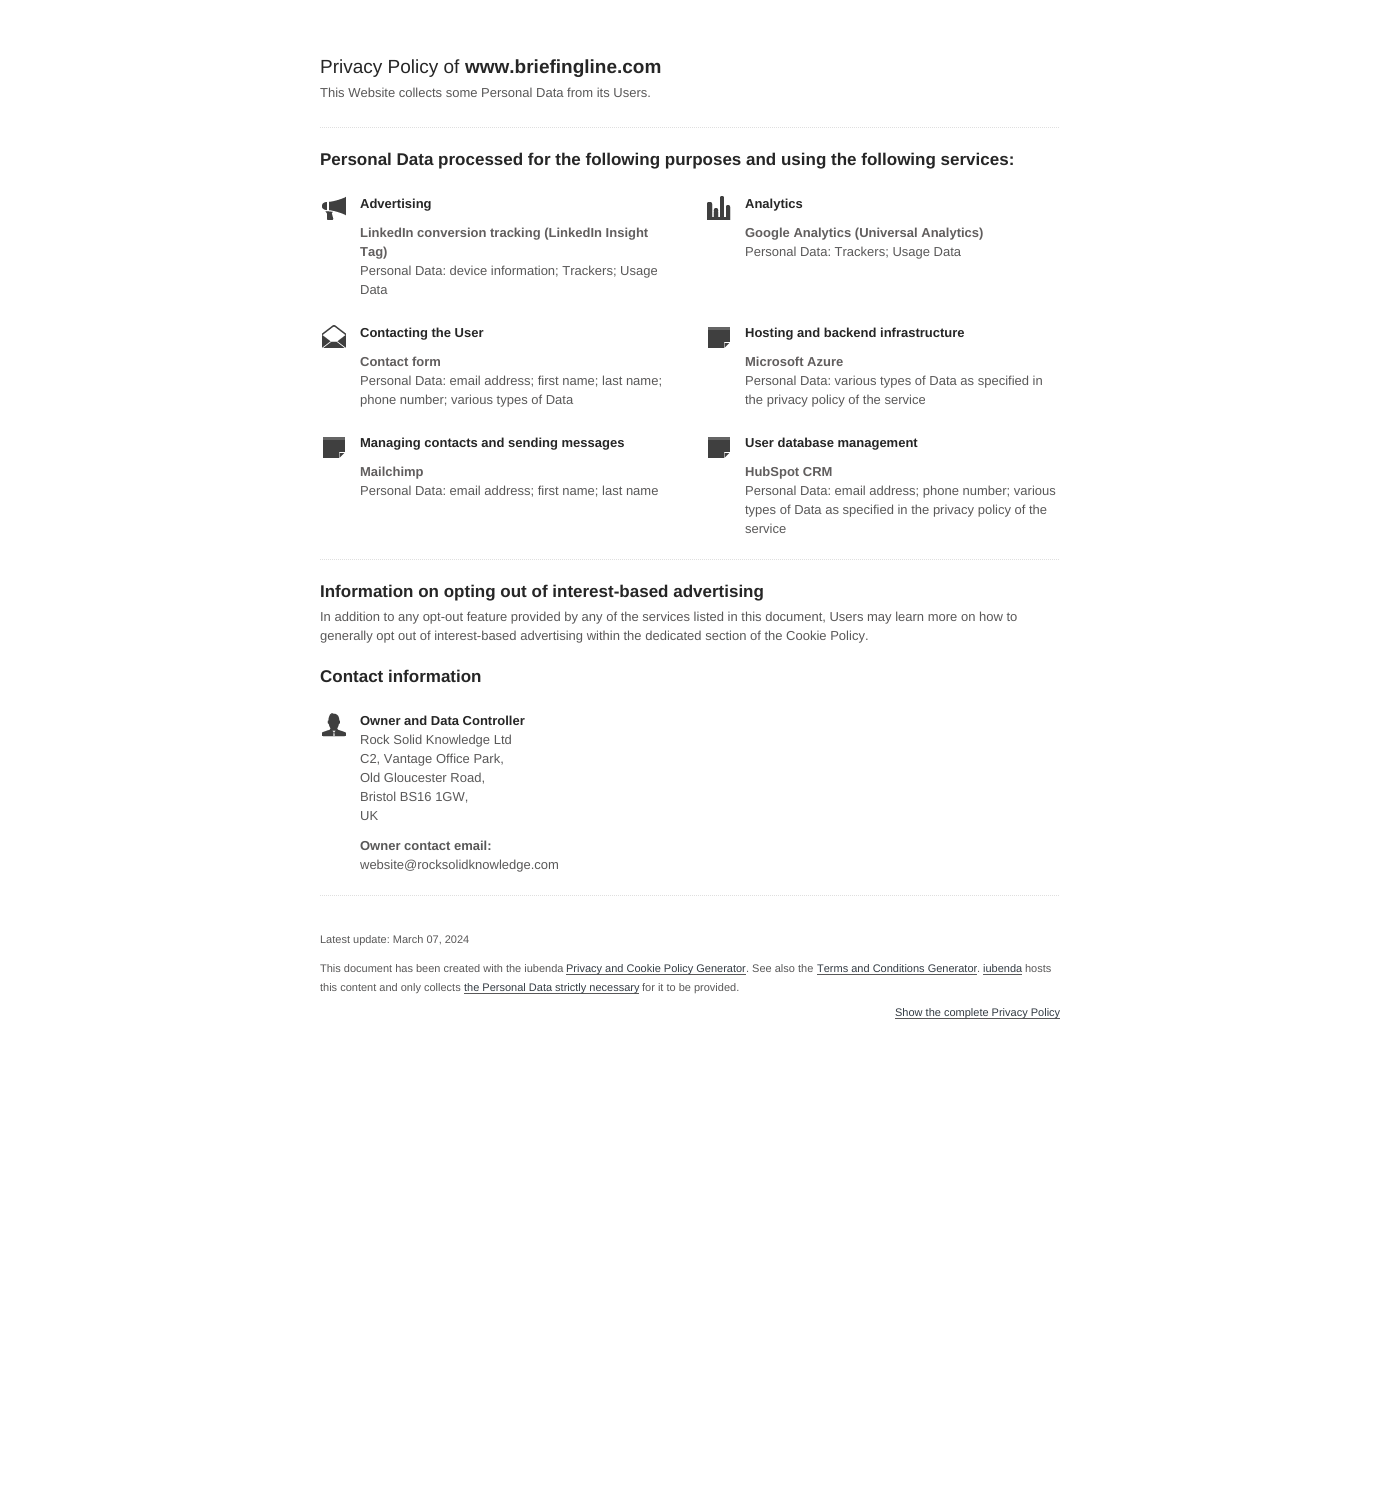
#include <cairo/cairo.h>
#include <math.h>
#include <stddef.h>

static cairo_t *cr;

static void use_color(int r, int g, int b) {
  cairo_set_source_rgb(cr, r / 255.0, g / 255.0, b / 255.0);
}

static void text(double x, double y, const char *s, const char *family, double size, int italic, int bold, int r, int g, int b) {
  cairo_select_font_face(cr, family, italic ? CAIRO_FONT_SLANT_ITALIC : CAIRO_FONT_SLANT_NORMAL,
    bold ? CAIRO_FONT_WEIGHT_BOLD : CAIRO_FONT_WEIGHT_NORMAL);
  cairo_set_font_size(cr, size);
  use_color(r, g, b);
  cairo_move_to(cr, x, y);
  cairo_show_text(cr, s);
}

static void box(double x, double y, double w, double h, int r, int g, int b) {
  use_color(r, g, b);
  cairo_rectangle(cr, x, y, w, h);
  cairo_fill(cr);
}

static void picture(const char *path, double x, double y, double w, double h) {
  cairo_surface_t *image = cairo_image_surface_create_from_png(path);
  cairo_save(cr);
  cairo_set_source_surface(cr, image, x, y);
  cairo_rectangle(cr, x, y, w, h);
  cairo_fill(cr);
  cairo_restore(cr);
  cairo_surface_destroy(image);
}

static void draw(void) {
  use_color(255, 255, 255);
  cairo_paint(cr);
  cairo_new_path(cr);
  cairo_move_to(cr, 320, 127.5);
  cairo_line_to(cr, 1060, 127.5);
  use_color(223, 223, 223);
  cairo_set_line_width(cr, 1);
  cairo_set_dash(cr, (double[]){1, 1}, 2, 0);
  cairo_stroke(cr);
  cairo_new_path(cr);
  cairo_move_to(cr, 320, 559.5);
  cairo_line_to(cr, 1060, 559.5);
  cairo_stroke(cr);
  picture("img_01.png", 322, 196, 24, 24);
  picture("img_02.png", 707, 196, 24, 24);
  picture("img_03.png", 322, 325, 24, 23);
  picture("img_04.png", 708, 327, 22, 21);
  picture("img_04.png", 323, 437, 22, 21);
  picture("img_04.png", 708, 437, 22, 21);
  cairo_new_path(cr);
  cairo_move_to(cr, 320, 895.5);
  cairo_line_to(cr, 1060, 895.5);
  cairo_stroke(cr);
  picture("img_05.png", 322, 713, 24, 24);
  box(566, 974, 180, 1, 89, 88, 88);
  box(817, 974, 160, 1, 89, 88, 88);
  box(983, 974, 39, 1, 89, 88, 88);
  box(464, 993, 175, 1, 89, 88, 88);
  box(895, 1018, 165, 1, 89, 88, 88);
  text(320, 73, "Privacy Policy of", "Liberation Sans", 19, 0, 0, 38, 38, 38);
  text(465, 73, "www.briefingline.com", "Liberation Sans", 19, 0, 1, 38, 38, 38);
  text(320, 97, "This Website collects some Personal Data from its Users.", "Liberation Sans", 13, 0, 0, 89, 88, 88);
  text(320, 165, "Personal Data processed for the following purposes and using the following services:", "Liberation Sans", 17, 0, 1, 38, 38, 38);
  text(360, 208, "Advertising", "Liberation Sans", 13, 0, 1, 38, 38, 38);
  text(360, 237, "LinkedIn conversion tracking (LinkedIn Insight", "Liberation Sans", 13, 0, 1, 97, 94, 94);
  text(360, 256, "Tag)", "Liberation Sans", 13, 0, 1, 97, 94, 94);
  text(360, 275, "Personal Data: device information; Trackers; Usage", "Liberation Sans", 13, 0, 0, 89, 88, 88);
  text(360, 294, "Data", "Liberation Sans", 13, 0, 0, 89, 88, 88);
  text(745, 208, "Analytics", "Liberation Sans", 13, 0, 1, 38, 38, 38);
  text(745, 237, "Google Analytics (Universal Analytics)", "Liberation Sans", 13, 0, 1, 97, 94, 94);
  text(745, 256, "Personal Data: Trackers; Usage Data", "Liberation Sans", 13, 0, 0, 89, 88, 88);
  text(360, 337, "Contacting the User", "Liberation Sans", 13, 0, 1, 38, 38, 38);
  text(360, 366, "Contact form", "Liberation Sans", 13, 0, 1, 97, 94, 94);
  text(360, 385, "Personal Data: email address; first name; last name;", "Liberation Sans", 13, 0, 0, 89, 88, 88);
  text(360, 404, "phone number; various types of Data", "Liberation Sans", 13, 0, 0, 89, 88, 88);
  text(745, 337, "Hosting and backend infrastructure", "Liberation Sans", 13, 0, 1, 38, 38, 38);
  text(745, 366, "Microsoft Azure", "Liberation Sans", 13, 0, 1, 97, 94, 94);
  text(745, 385, "Personal Data: various types of Data as specified in", "Liberation Sans", 13, 0, 0, 89, 88, 88);
  text(745, 404, "the privacy policy of the service", "Liberation Sans", 13, 0, 0, 89, 88, 88);
  text(360, 447, "Managing contacts and sending messages", "Liberation Sans", 13, 0, 1, 38, 38, 38);
  text(360, 476, "Mailchimp", "Liberation Sans", 13, 0, 1, 97, 94, 94);
  text(360, 495, "Personal Data: email address; first name; last name", "Liberation Sans", 13, 0, 0, 89, 88, 88);
  text(745, 447, "User database management", "Liberation Sans", 13, 0, 1, 38, 38, 38);
  text(745, 476, "HubSpot CRM", "Liberation Sans", 13, 0, 1, 97, 94, 94);
  text(745, 495, "Personal Data: email address; phone number; various", "Liberation Sans", 13, 0, 0, 89, 88, 88);
  text(745, 514, "types of Data as specified in the privacy policy of the", "Liberation Sans", 13, 0, 0, 89, 88, 88);
  text(745, 533, "service", "Liberation Sans", 13, 0, 0, 89, 88, 88);
  text(320, 597, "Information on opting out of interest-based advertising", "Liberation Sans", 17, 0, 1, 38, 38, 38);
  text(320, 621, "In addition to any opt-out feature provided by any of the services listed in this document, Users may learn more on how to", "Liberation Sans", 13, 0, 0, 89, 88, 88);
  text(320, 640, "generally opt out of interest-based advertising within the dedicated section of the Cookie Policy.", "Liberation Sans", 13, 0, 0, 89, 88, 88);
  text(320, 682, "Contact information", "Liberation Sans", 17, 0, 1, 38, 38, 38);
  text(360, 725, "Owner and Data Controller", "Liberation Sans", 13, 0, 1, 38, 38, 38);
  text(360, 744, "Rock Solid Knowledge Ltd", "Liberation Sans", 13, 0, 0, 89, 88, 88);
  text(360, 763, "C2, Vantage Office Park,", "Liberation Sans", 13, 0, 0, 89, 88, 88);
  text(360, 782, "Old Gloucester Road,", "Liberation Sans", 13, 0, 0, 89, 88, 88);
  text(360, 801, "Bristol BS16 1GW,", "Liberation Sans", 13, 0, 0, 89, 88, 88);
  text(360, 820, "UK", "Liberation Sans", 13, 0, 0, 89, 88, 88);
  text(360, 850, "Owner contact email:", "Liberation Sans", 13, 0, 1, 89, 88, 88);
  text(360, 869, "website@rocksolidknowledge.com", "Liberation Sans", 13, 0, 0, 89, 88, 88);
  text(320, 943, "Latest update: March 07, 2024", "Liberation Sans", 11, 0, 0, 89, 88, 88);
  text(320, 972, "This document has been created with the iubenda", "Liberation Sans", 11, 0, 0, 89, 88, 88);
  text(566, 972, "Privacy and Cookie Policy Generator", "Liberation Sans", 11, 0, 0, 51, 59, 67);
  text(746, 972, ". See also the", "Liberation Sans", 11, 0, 0, 89, 88, 88);
  text(817, 972, "Terms and Conditions Generator", "Liberation Sans", 11, 0, 0, 51, 59, 67);
  text(977, 972, ".", "Liberation Sans", 11, 0, 0, 89, 88, 88);
  text(983, 972, "iubenda", "Liberation Sans", 11, 0, 0, 51, 59, 67);
  text(1025, 972, "hosts", "Liberation Sans", 11, 0, 0, 89, 88, 88);
  text(320, 991, "this content and only collects", "Liberation Sans", 11, 0, 0, 89, 88, 88);
  text(464, 991, "the Personal Data strictly necessary", "Liberation Sans", 11, 0, 0, 51, 59, 67);
  text(642, 991, "for it to be provided.", "Liberation Sans", 11, 0, 0, 89, 88, 88);
  text(895, 1016, "Show the complete Privacy Policy", "Liberation Sans", 11, 0, 0, 51, 59, 67);
}

int main(void) {
  cairo_surface_t *surface = cairo_image_surface_create(CAIRO_FORMAT_RGB24, 1380, 1507);
  cr = cairo_create(surface);
  cairo_font_options_t *options = cairo_font_options_create();
  cairo_font_options_set_hint_metrics(options, CAIRO_HINT_METRICS_OFF);
  cairo_font_options_set_hint_style(options, CAIRO_HINT_STYLE_NONE);
  cairo_set_font_options(cr, options);
  cairo_set_miter_limit(cr, 4);
  draw();
  cairo_surface_write_to_png(surface, "out.png");
  cairo_font_options_destroy(options);
  cairo_destroy(cr);
  cairo_surface_destroy(surface);
  return 0;
}
